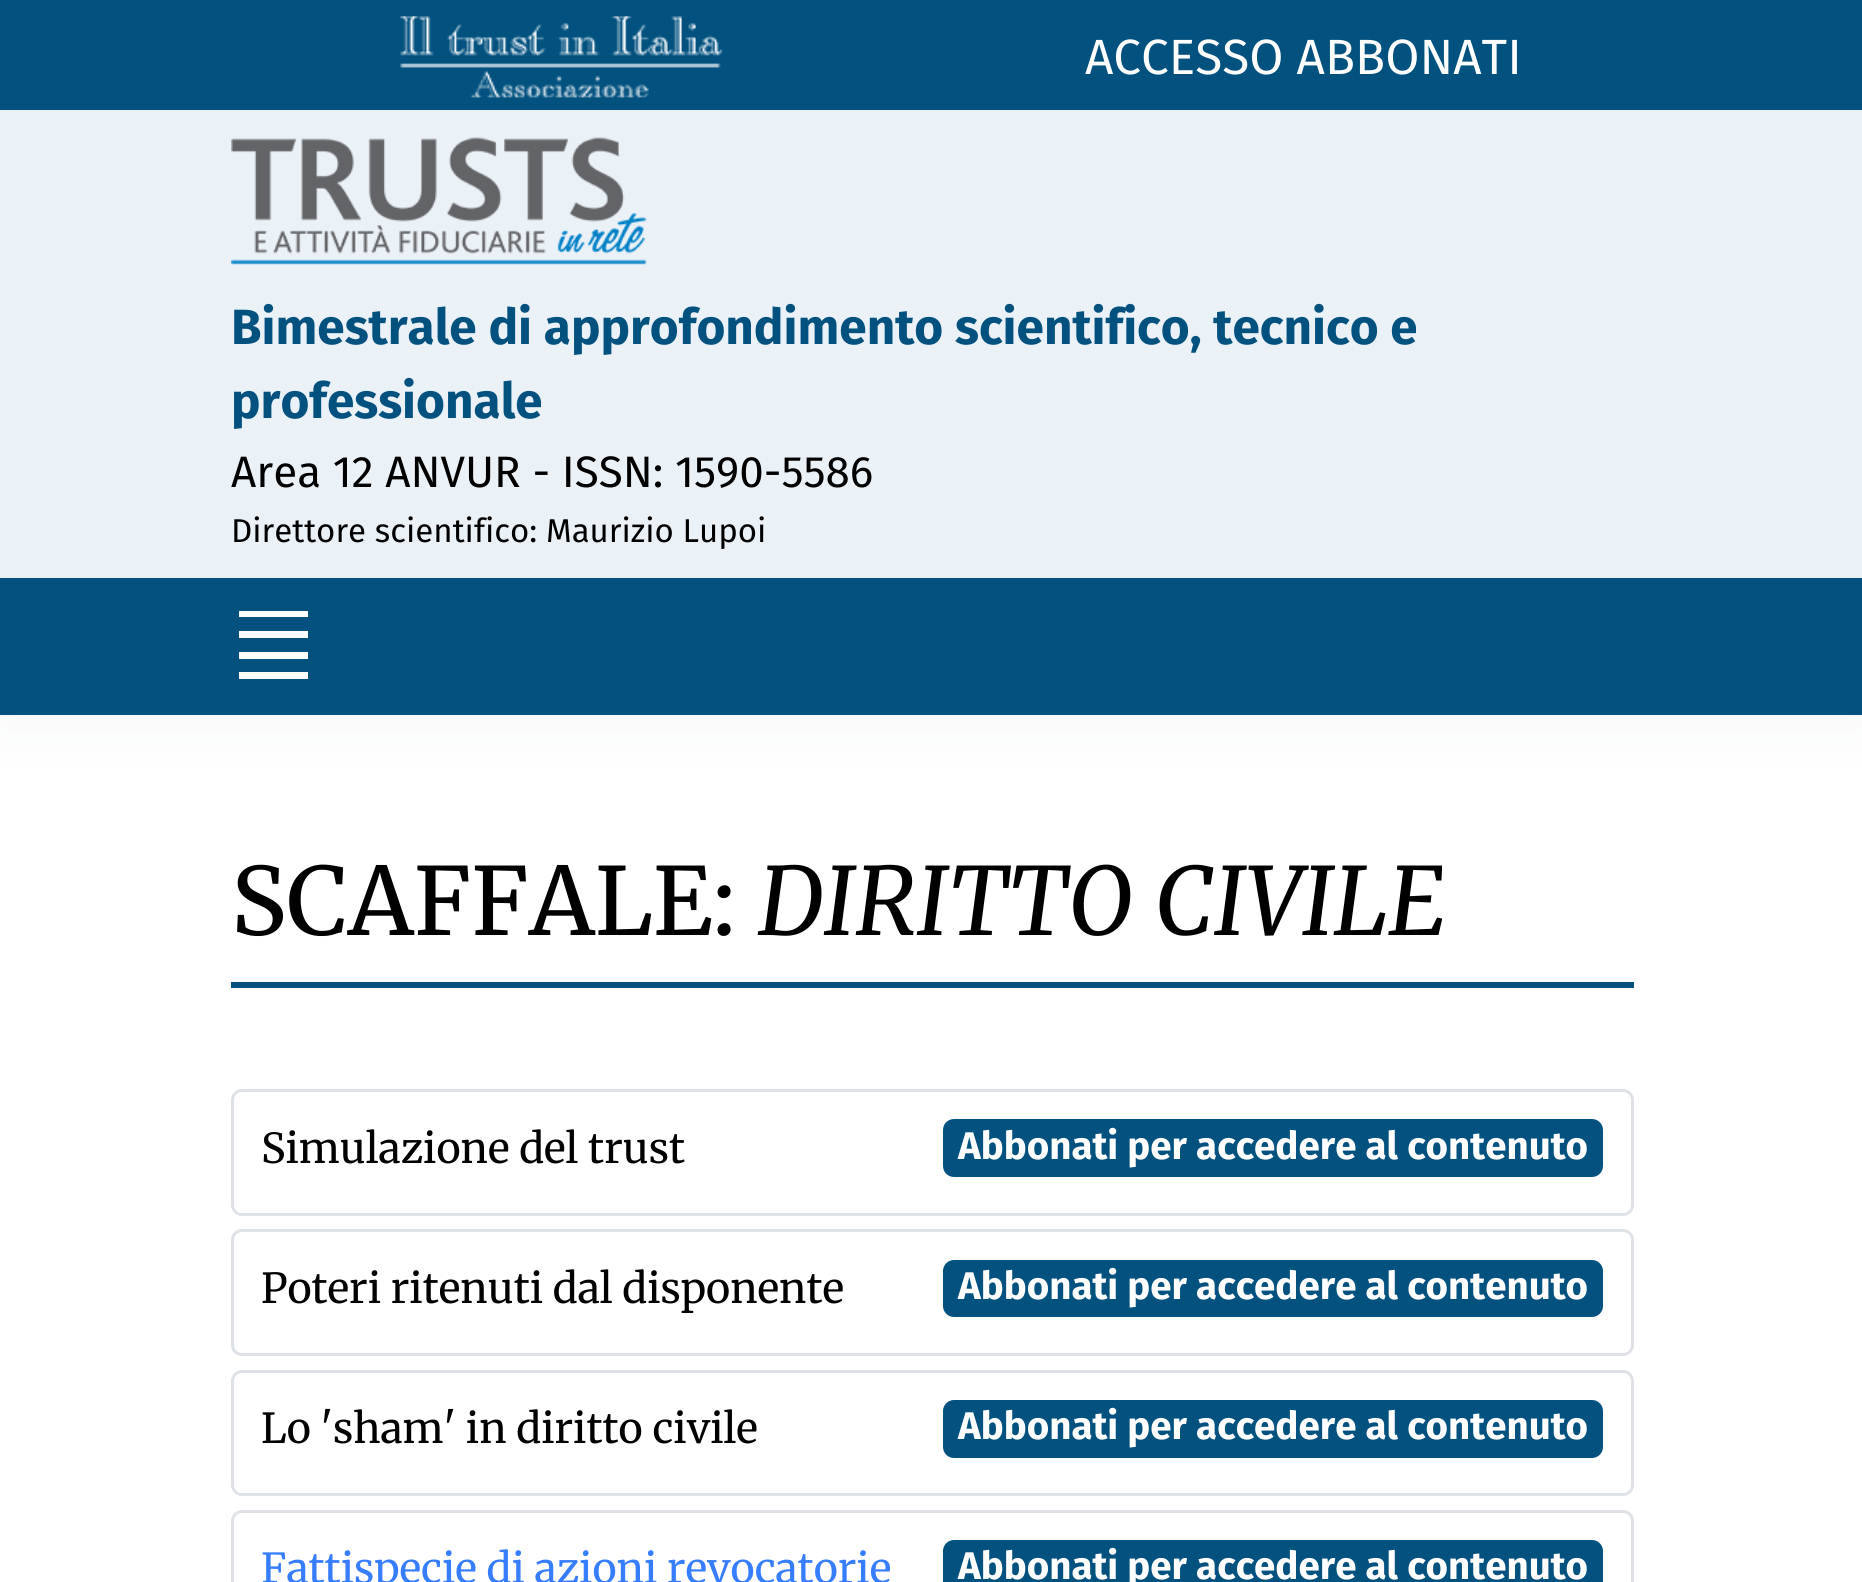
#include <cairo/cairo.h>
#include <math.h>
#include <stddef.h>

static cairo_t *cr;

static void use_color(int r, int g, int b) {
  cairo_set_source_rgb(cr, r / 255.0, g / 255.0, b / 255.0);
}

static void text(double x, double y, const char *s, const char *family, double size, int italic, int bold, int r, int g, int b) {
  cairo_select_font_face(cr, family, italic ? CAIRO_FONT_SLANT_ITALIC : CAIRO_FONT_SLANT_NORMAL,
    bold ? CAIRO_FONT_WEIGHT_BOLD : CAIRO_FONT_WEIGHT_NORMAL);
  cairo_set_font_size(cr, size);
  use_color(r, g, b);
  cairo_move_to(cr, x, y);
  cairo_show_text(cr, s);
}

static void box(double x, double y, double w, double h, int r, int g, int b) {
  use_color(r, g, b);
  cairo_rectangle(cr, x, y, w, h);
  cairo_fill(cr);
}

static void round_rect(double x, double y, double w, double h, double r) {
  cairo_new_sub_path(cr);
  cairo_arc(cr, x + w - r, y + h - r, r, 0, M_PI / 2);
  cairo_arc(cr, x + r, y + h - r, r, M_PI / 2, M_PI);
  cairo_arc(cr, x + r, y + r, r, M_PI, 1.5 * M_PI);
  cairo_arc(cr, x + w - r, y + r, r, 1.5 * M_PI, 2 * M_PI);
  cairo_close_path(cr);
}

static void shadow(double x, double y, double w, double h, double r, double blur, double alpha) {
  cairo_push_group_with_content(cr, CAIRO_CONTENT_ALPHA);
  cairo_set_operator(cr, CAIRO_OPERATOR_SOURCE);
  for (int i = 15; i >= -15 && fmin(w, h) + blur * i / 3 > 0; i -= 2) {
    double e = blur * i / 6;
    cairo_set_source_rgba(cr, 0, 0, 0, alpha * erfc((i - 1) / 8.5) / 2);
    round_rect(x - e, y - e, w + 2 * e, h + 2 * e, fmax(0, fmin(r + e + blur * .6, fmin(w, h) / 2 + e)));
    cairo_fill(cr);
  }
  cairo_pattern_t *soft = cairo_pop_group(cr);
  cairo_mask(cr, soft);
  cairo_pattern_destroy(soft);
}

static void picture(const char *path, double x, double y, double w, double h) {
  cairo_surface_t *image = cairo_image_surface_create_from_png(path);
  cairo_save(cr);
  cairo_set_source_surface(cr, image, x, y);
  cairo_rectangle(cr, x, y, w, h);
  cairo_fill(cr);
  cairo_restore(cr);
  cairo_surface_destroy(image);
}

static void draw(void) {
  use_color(255, 255, 255);
  cairo_paint(cr);
  use_color(140, 152, 164);
  shadow(0, 0, 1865, 715, 0, 34.5, 0.1);
  box(0, 0, 1862, 715, 2, 81, 127);
  picture("img_01.png", 399, 16, 324, 82);
  box(0, 110, 1862, 468, 234, 241, 247);
  picture("img_02.png", 231, 137, 416, 128);
  box(239, 611, 69, 6, 255, 255, 255);
  box(239, 631, 69, 7, 255, 255, 255);
  box(239, 652, 69, 7, 255, 255, 255);
  box(239, 672, 69, 7, 255, 255, 255);
  box(231, 982, 1403, 6, 2, 81, 127);
  round_rect(232.5, 1090.5, 1400, 124, 9.5);
  use_color(222, 226, 230);
  cairo_set_line_width(cr, 3);
  cairo_stroke(cr);
  use_color(2, 81, 127);
  round_rect(943, 1119, 660, 58, 11);
  cairo_fill(cr);
  round_rect(232.5, 1230.5, 1400, 124, 9.5);
  use_color(222, 226, 230);
  cairo_stroke(cr);
  use_color(2, 81, 127);
  round_rect(943, 1260, 660, 57, 11);
  cairo_fill(cr);
  round_rect(232.5, 1371.5, 1400, 123, 9.5);
  use_color(222, 226, 230);
  cairo_stroke(cr);
  use_color(2, 81, 127);
  round_rect(943, 1400, 660, 58, 11);
  cairo_fill(cr);
  round_rect(232.5, 1511.5, 1400, 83, 9.5);
  use_color(222, 226, 230);
  cairo_stroke(cr);
  use_color(2, 81, 127);
  round_rect(943, 1540, 660, 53, 11);
  cairo_fill(cr);
  text(1085, 74, "ACCESSO ABBONATI", "Fira Sans", 49.5, 0, 0, 255, 255, 255);
  text(231, 344, "Bimestrale di approfondimento scientifico, tecnico e", "Fira Sans", 49.5, 0, 1, 2, 81, 127);
  text(231, 418, "professionale", "Fira Sans", 49.5, 0, 1, 2, 81, 127);
  text(231, 487, "Area 12 ANVUR - ISSN: 1590-5586", "Fira Sans", 44, 0, 0, 0, 0, 0);
  text(231, 542, "Direttore scientifico: Maurizio Lupoi", "Fira Sans", 33, 0, 0, 0, 0, 0);
  text(231, 935, "SCAFFALE:", "Merriweather", 93.5, 0, 0, 0, 0, 0);
  text(758, 935, "DIRITTO CIVILE", "Merriweather", 93.5, 1, 0, 0, 0, 0);
  text(261, 1163, "Simulazione del trust", "Merriweather", 41.25, 0, 0, 0, 0, 0);
  text(958, 1159, "Abbonati per accedere al contenuto", "Fira Sans", 38.5, 0, 1, 255, 255, 255);
  text(261, 1303, "Poteri ritenuti dal disponente", "Merriweather", 41.25, 0, 0, 0, 0, 0);
  text(958, 1299, "Abbonati per accedere al contenuto", "Fira Sans", 38.5, 0, 1, 255, 255, 255);
  text(261, 1443, "Lo 'sham' in diritto civile", "Merriweather", 41.25, 0, 0, 0, 0, 0);
  text(958, 1439, "Abbonati per accedere al contenuto", "Fira Sans", 38.5, 0, 1, 255, 255, 255);
  text(261, 1583, "Fattispecie di azioni revocatorie", "Merriweather", 41.25, 0, 0, 55, 125, 255);
  text(958, 1579, "Abbonati per accedere al contenuto", "Fira Sans", 38.5, 0, 1, 255, 255, 255);
}

int main(void) {
  cairo_surface_t *surface = cairo_image_surface_create(CAIRO_FORMAT_RGB24, 1862, 1582);
  cr = cairo_create(surface);
  cairo_font_options_t *options = cairo_font_options_create();
  cairo_font_options_set_hint_metrics(options, CAIRO_HINT_METRICS_OFF);
  cairo_font_options_set_hint_style(options, CAIRO_HINT_STYLE_NONE);
  cairo_set_font_options(cr, options);
  cairo_set_miter_limit(cr, 4);
  draw();
  cairo_surface_write_to_png(surface, "out.png");
  cairo_font_options_destroy(options);
  cairo_destroy(cr);
  cairo_surface_destroy(surface);
  return 0;
}
